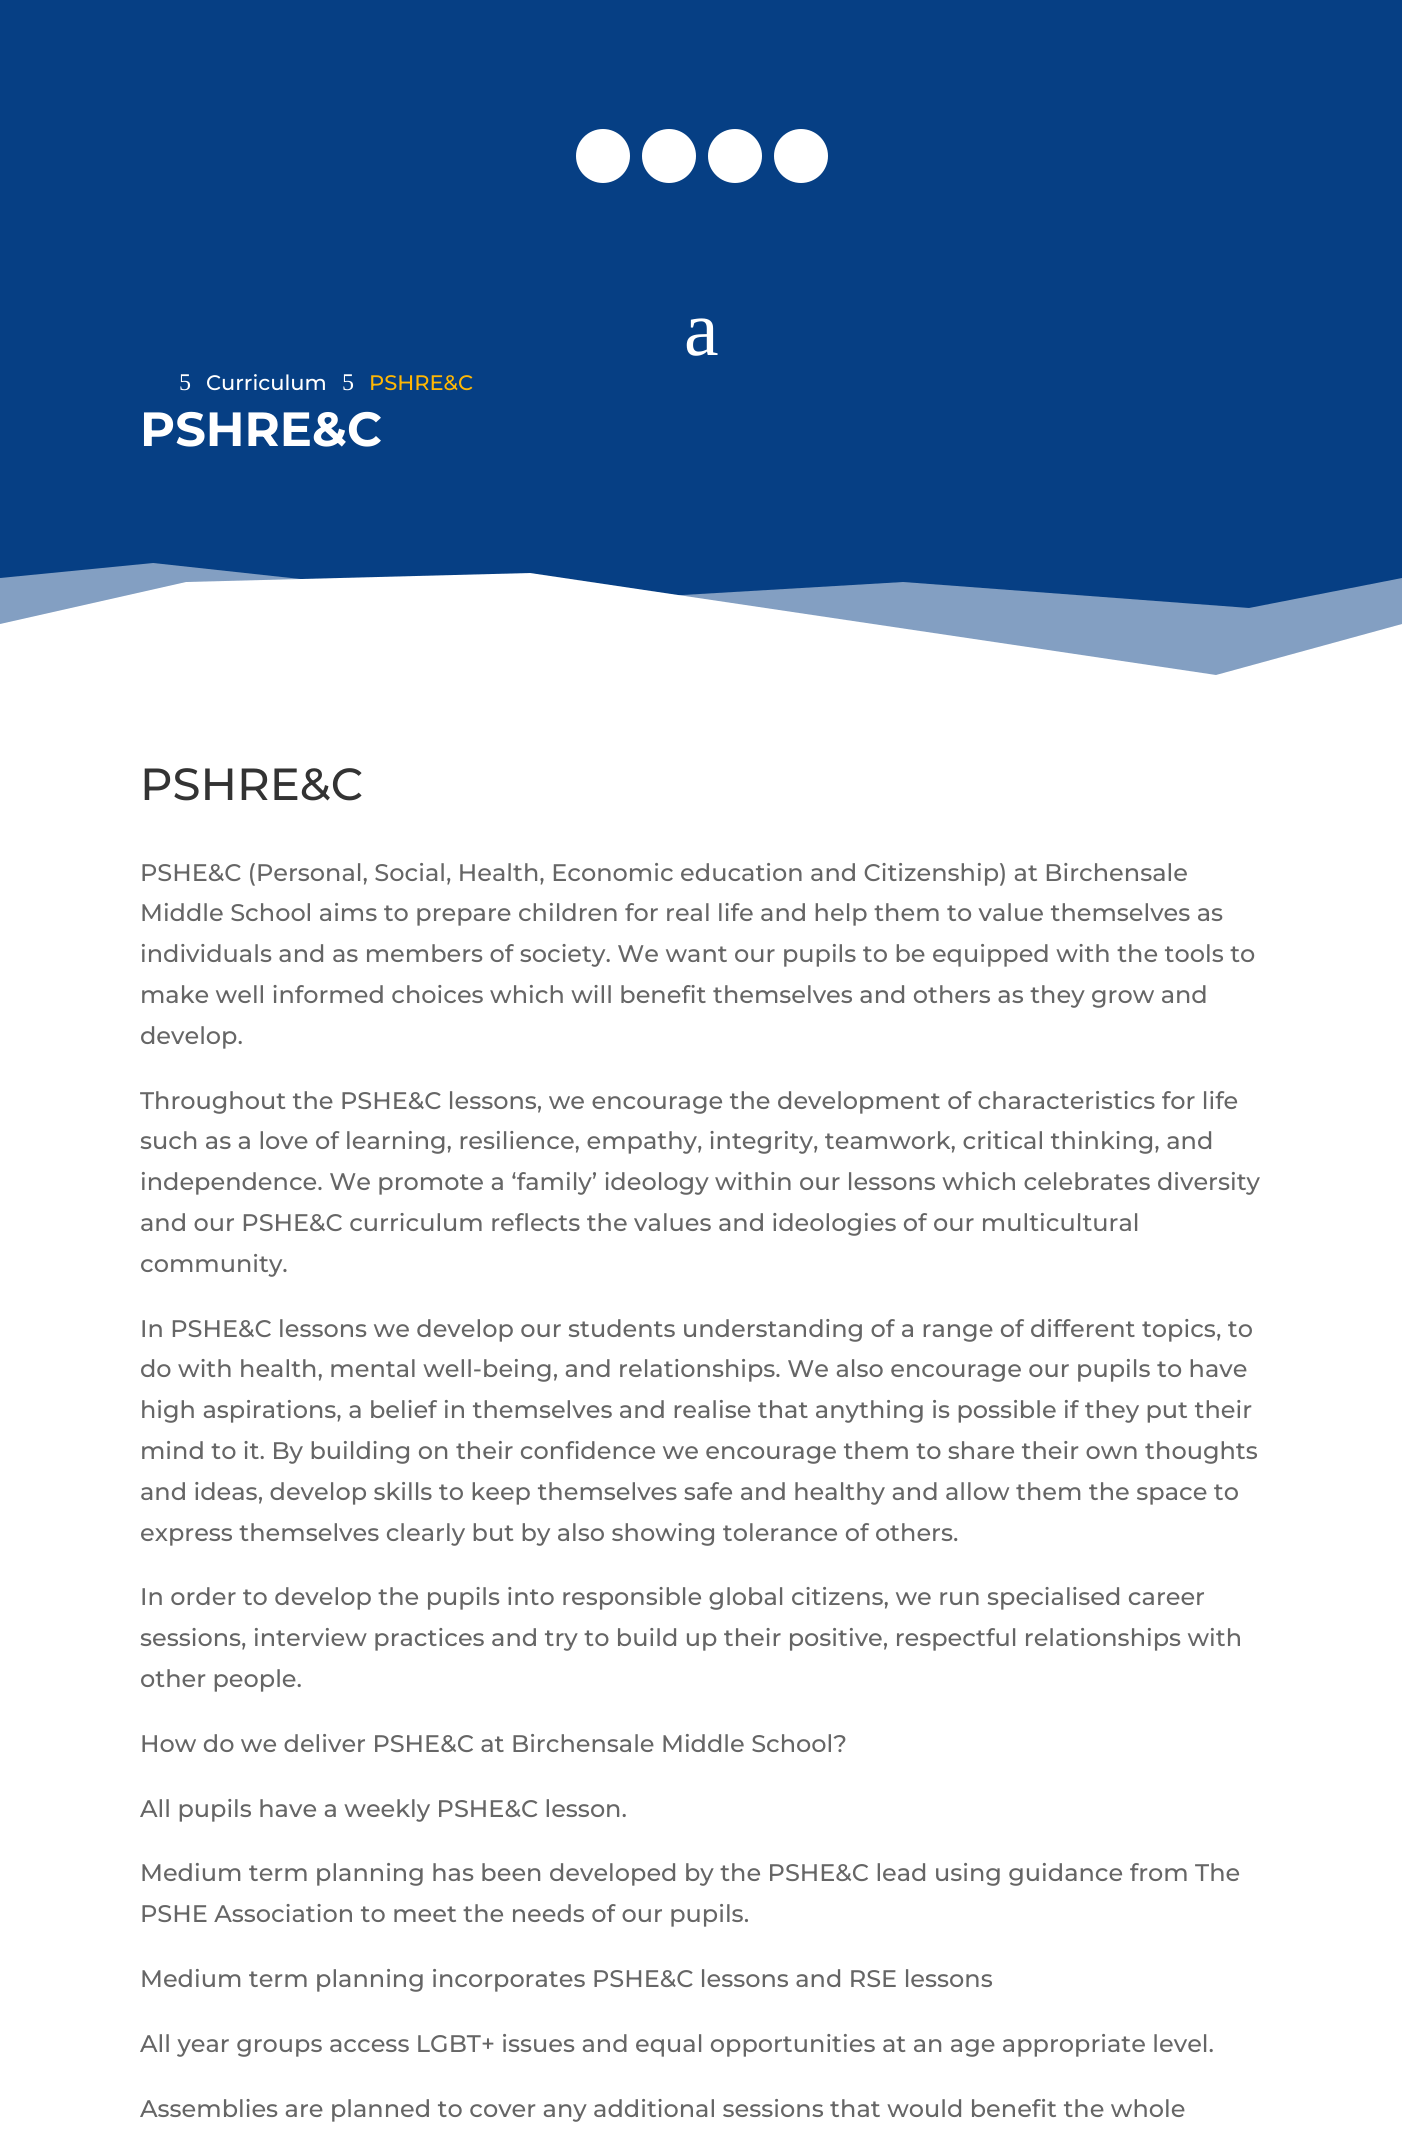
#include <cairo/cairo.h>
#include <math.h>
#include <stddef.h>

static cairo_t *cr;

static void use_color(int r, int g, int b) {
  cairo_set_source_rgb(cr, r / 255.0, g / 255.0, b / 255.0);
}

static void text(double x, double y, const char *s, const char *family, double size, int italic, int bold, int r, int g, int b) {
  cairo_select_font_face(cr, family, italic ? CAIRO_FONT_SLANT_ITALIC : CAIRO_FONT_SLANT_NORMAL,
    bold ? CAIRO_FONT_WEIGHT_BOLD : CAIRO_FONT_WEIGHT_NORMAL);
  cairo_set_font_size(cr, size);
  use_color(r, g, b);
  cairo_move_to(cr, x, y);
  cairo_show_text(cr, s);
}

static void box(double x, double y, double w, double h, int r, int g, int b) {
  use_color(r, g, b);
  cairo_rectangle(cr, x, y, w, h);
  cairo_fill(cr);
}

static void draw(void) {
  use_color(255, 255, 255);
  cairo_paint(cr);
  box(0, 0, 1402, 608, 6, 63, 132);
  use_color(255, 255, 255);
  cairo_arc(cr, 603, 156, 27, 0, 2 * M_PI);
  cairo_fill(cr);
  cairo_arc(cr, 669, 156, 27, 0, 2 * M_PI);
  cairo_fill(cr);
  cairo_arc(cr, 735, 156, 27, 0, 2 * M_PI);
  cairo_fill(cr);
  cairo_arc(cr, 801, 156, 27, 0, 2 * M_PI);
  cairo_fill(cr);
  use_color(131, 159, 194);
  cairo_new_path(cr);
  cairo_move_to(cr, 1402, 578);
  cairo_line_to(cr, 1249, 608);
  cairo_line_to(cr, 903, 582);
  cairo_line_to(cr, 530, 604);
  cairo_line_to(cr, 153, 563);
  cairo_line_to(cr, 0, 578);
  cairo_line_to(cr, 0, 675);
  cairo_line_to(cr, 1402, 675);
  cairo_close_path(cr);
  cairo_fill(cr);
  use_color(255, 255, 255);
  cairo_new_path(cr);
  cairo_move_to(cr, 1402, 675);
  cairo_line_to(cr, 1402, 624);
  cairo_line_to(cr, 1216, 675);
  cairo_line_to(cr, 530, 573);
  cairo_line_to(cr, 186, 582);
  cairo_line_to(cr, 0, 624);
  cairo_line_to(cr, 0, 675);
  cairo_close_path(cr);
  cairo_fill(cr);
  text(684, 355, "a", "Liberation Serif", 78, 0, 0, 255, 255, 255);
  text(179, 390, "5", "Liberation Serif", 24, 0, 0, 255, 255, 255);
  text(206, 390, "Curriculum", "Montserrat Thin", 21, 0, 0, 255, 255, 255);
  text(342, 390, "5", "Liberation Serif", 24, 0, 0, 255, 255, 255);
  text(369, 390, "PSHRE&C", "Montserrat Thin", 21, 0, 0, 255, 183, 3);
  text(140, 446, "PSHRE&C", "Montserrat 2 Thin", 48, 0, 0, 255, 255, 255);
  text(140, 800, "PSHRE&C", "Montserrat Thin", 45, 0, 0, 51, 51, 51);
  text(140, 881, "PSHE&C (Personal, Social, Health, Economic education and Citizenship) at Birchensale", "Montserrat Thin", 24, 0, 0, 102, 102, 102);
  text(140, 921, "Middle School aims to prepare children for real life and help them to value themselves as", "Montserrat Thin", 24, 0, 0, 102, 102, 102);
  text(140, 962, "individuals and as members of society. We want our pupils to be equipped with the tools to", "Montserrat Thin", 24, 0, 0, 102, 102, 102);
  text(140, 1003, "make well informed choices which will benefit themselves and others as they grow and", "Montserrat Thin", 24, 0, 0, 102, 102, 102);
  text(140, 1044, "develop.", "Montserrat Thin", 24, 0, 0, 102, 102, 102);
  text(140, 1109, "Throughout the PSHE&C lessons, we encourage the development of characteristics for life", "Montserrat Thin", 24, 0, 0, 102, 102, 102);
  text(140, 1149, "such as a love of learning, resilience, empathy, integrity, teamwork, critical thinking, and", "Montserrat Thin", 24, 0, 0, 102, 102, 102);
  text(140, 1190, "independence. We promote a ‘family’ ideology within our lessons which celebrates diversity", "Montserrat Thin", 24, 0, 0, 102, 102, 102);
  text(140, 1231, "and our PSHE&C curriculum reflects the values and ideologies of our multicultural", "Montserrat Thin", 24, 0, 0, 102, 102, 102);
  text(140, 1272, "community.", "Montserrat Thin", 24, 0, 0, 102, 102, 102);
  text(140, 1337, "In PSHE&C lessons we develop our students understanding of a range of different topics, to", "Montserrat Thin", 24, 0, 0, 102, 102, 102);
  text(140, 1377, "do with health, mental well-being, and relationships. We also encourage our pupils to have", "Montserrat Thin", 24, 0, 0, 102, 102, 102);
  text(140, 1418, "high aspirations, a belief in themselves and realise that anything is possible if they put their", "Montserrat Thin", 24, 0, 0, 102, 102, 102);
  text(140, 1459, "mind to it. By building on their confidence we encourage them to share their own thoughts", "Montserrat Thin", 24, 0, 0, 102, 102, 102);
  text(140, 1500, "and ideas, develop skills to keep themselves safe and healthy and allow them the space to", "Montserrat Thin", 24, 0, 0, 102, 102, 102);
  text(140, 1541, "express themselves clearly but by also showing tolerance of others.", "Montserrat Thin", 24, 0, 0, 102, 102, 102);
  text(140, 1605, "In order to develop the pupils into responsible global citizens, we run specialised career", "Montserrat Thin", 24, 0, 0, 102, 102, 102);
  text(140, 1646, "sessions, interview practices and try to build up their positive, respectful relationships with", "Montserrat Thin", 24, 0, 0, 102, 102, 102);
  text(140, 1687, "other people.", "Montserrat Thin", 24, 0, 0, 102, 102, 102);
  text(140, 1752, "How do we deliver PSHE&C at Birchensale Middle School?", "Montserrat Thin", 24, 0, 0, 102, 102, 102);
  text(140, 1817, "All pupils have a weekly PSHE&C lesson.", "Montserrat Thin", 24, 0, 0, 102, 102, 102);
  text(140, 1881, "Medium term planning has been developed by the PSHE&C lead using guidance from The", "Montserrat Thin", 24, 0, 0, 102, 102, 102);
  text(140, 1922, "PSHE Association to meet the needs of our pupils.", "Montserrat Thin", 24, 0, 0, 102, 102, 102);
  text(140, 1987, "Medium term planning incorporates PSHE&C lessons and RSE lessons", "Montserrat Thin", 24, 0, 0, 102, 102, 102);
  text(140, 2052, "All year groups access LGBT+ issues and equal opportunities at an age appropriate level.", "Montserrat Thin", 24, 0, 0, 102, 102, 102);
  text(140, 2117, "Assemblies are planned to cover any additional sessions that would benefit the whole", "Montserrat Thin", 24, 0, 0, 102, 102, 102);
}

int main(void) {
  cairo_surface_t *surface = cairo_image_surface_create(CAIRO_FORMAT_RGB24, 1402, 2135);
  cr = cairo_create(surface);
  cairo_font_options_t *options = cairo_font_options_create();
  cairo_font_options_set_hint_metrics(options, CAIRO_HINT_METRICS_OFF);
  cairo_font_options_set_hint_style(options, CAIRO_HINT_STYLE_NONE);
  cairo_set_font_options(cr, options);
  cairo_set_miter_limit(cr, 4);
  draw();
  cairo_surface_write_to_png(surface, "out.png");
  cairo_font_options_destroy(options);
  cairo_destroy(cr);
  cairo_surface_destroy(surface);
  return 0;
}
